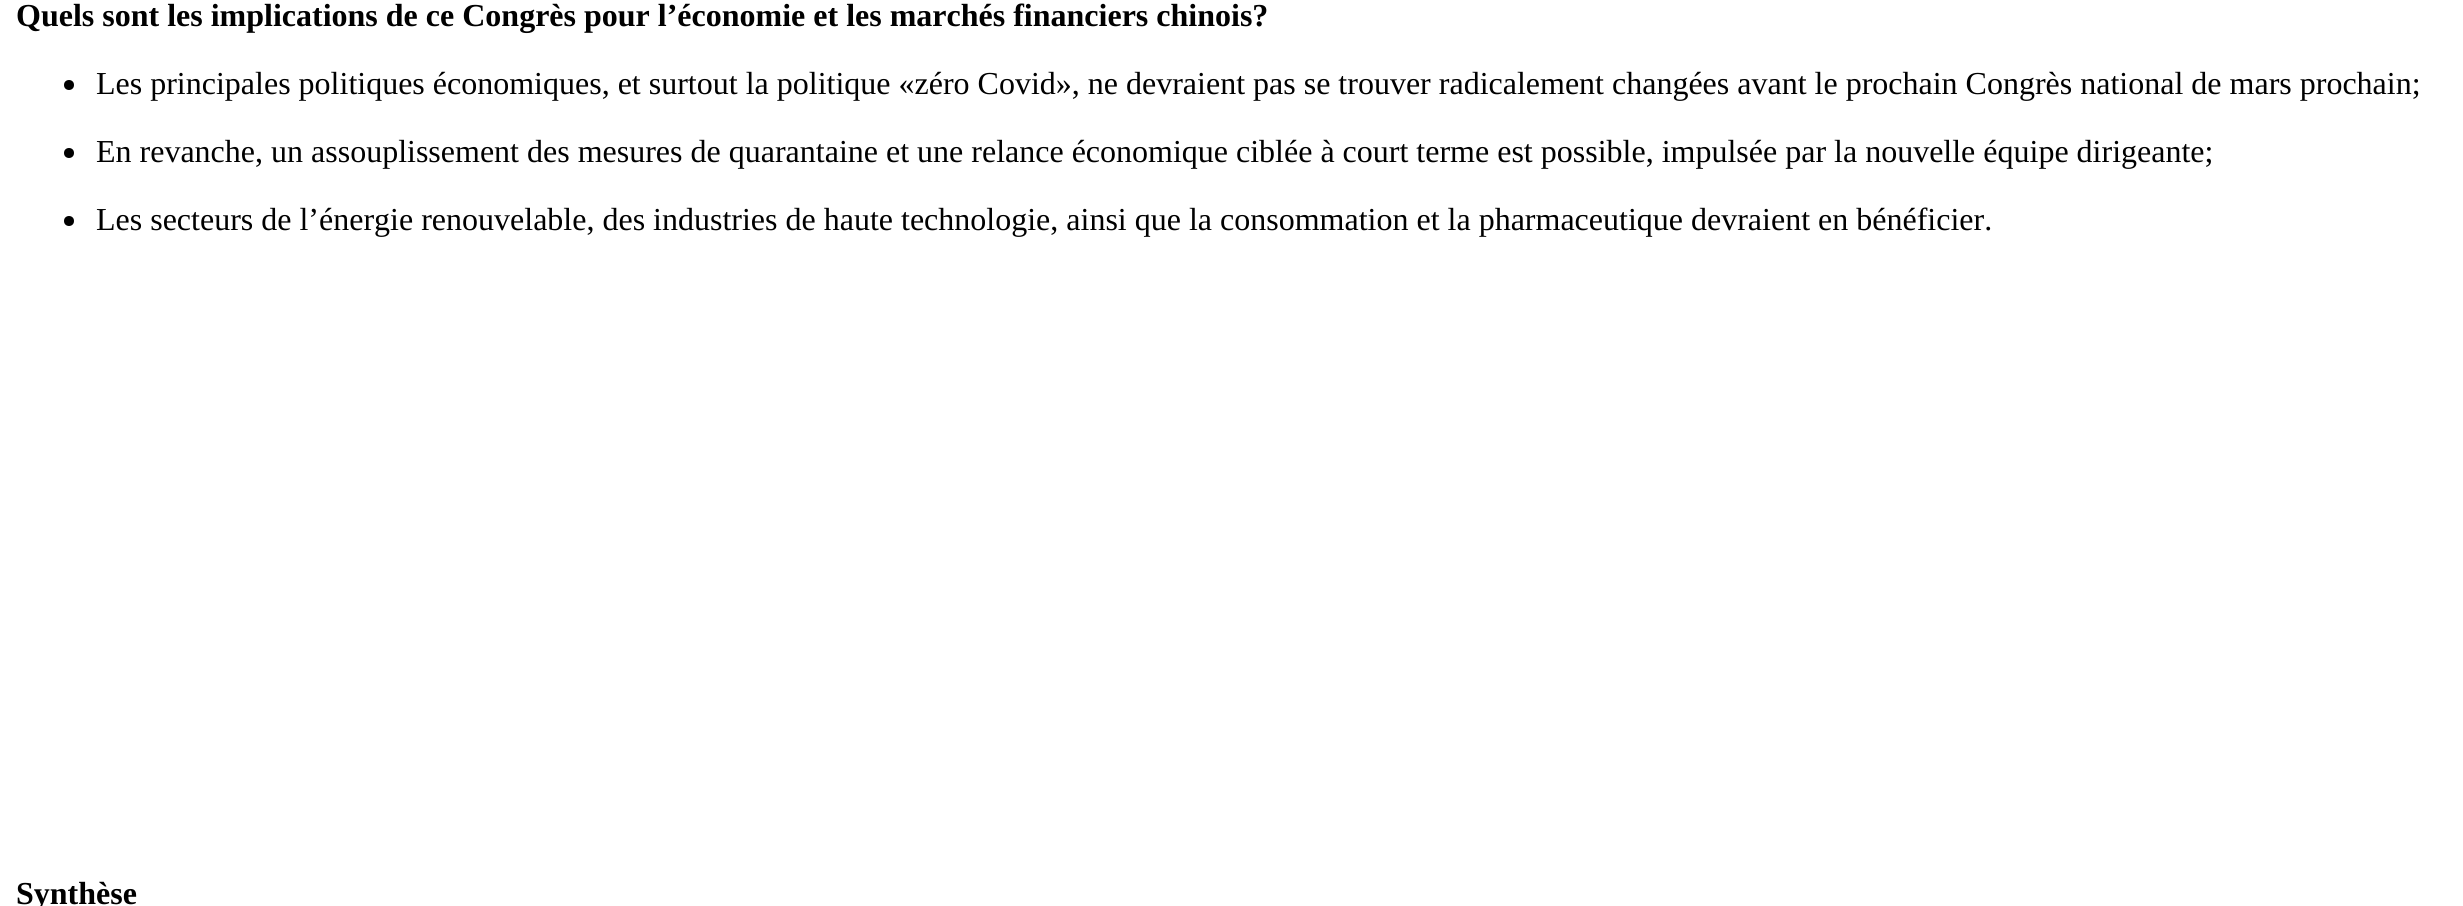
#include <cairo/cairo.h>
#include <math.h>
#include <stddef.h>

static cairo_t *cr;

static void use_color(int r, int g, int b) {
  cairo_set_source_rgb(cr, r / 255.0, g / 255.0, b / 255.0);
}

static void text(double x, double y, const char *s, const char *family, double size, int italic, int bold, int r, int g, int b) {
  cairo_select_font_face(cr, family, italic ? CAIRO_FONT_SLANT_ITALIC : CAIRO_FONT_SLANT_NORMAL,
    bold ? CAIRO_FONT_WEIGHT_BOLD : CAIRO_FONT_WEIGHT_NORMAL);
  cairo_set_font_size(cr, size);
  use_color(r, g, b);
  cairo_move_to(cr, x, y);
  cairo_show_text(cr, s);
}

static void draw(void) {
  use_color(255, 255, 255);
  cairo_paint(cr);
  use_color(0, 0, 0);
  cairo_arc(cr, 69, 85, 5, 0, 2 * M_PI);
  cairo_fill(cr);
  cairo_arc(cr, 69, 153, 5, 0, 2 * M_PI);
  cairo_fill(cr);
  cairo_arc(cr, 69, 221, 5, 0, 2 * M_PI);
  cairo_fill(cr);
  text(16, 26, "Quels sont les implications de ce Congrès pour l’économie et les marchés financiers chinois?", "Liberation Serif", 32, 0, 1, 0, 0, 0);
  text(96, 94, "Les principales politiques économiques, et surtout la politique «zéro Covid», ne devraient pas se trouver radicalement changées avant le prochain Congrès national de mars prochain;", "Liberation Serif", 32, 0, 0, 0, 0, 0);
  text(96, 162, "En revanche, un assouplissement des mesures de quarantaine et une relance économique ciblée à court terme est possible, impulsée par la nouvelle équipe dirigeante;", "Liberation Serif", 32, 0, 0, 0, 0, 0);
  text(96, 230, "Les secteurs de l’énergie renouvelable, des industries de haute technologie, ainsi que la consommation et la pharmaceutique devraient en bénéficier.", "Liberation Serif", 32, 0, 0, 0, 0, 0);
  text(16, 904, "Synthèse", "Liberation Serif", 32, 0, 1, 0, 0, 0);
}

int main(void) {
  cairo_surface_t *surface = cairo_image_surface_create(CAIRO_FORMAT_RGB24, 2463, 906);
  cr = cairo_create(surface);
  cairo_font_options_t *options = cairo_font_options_create();
  cairo_font_options_set_hint_metrics(options, CAIRO_HINT_METRICS_OFF);
  cairo_font_options_set_hint_style(options, CAIRO_HINT_STYLE_NONE);
  cairo_set_font_options(cr, options);
  cairo_set_miter_limit(cr, 4);
  draw();
  cairo_surface_write_to_png(surface, "out.png");
  cairo_font_options_destroy(options);
  cairo_destroy(cr);
  cairo_surface_destroy(surface);
  return 0;
}
